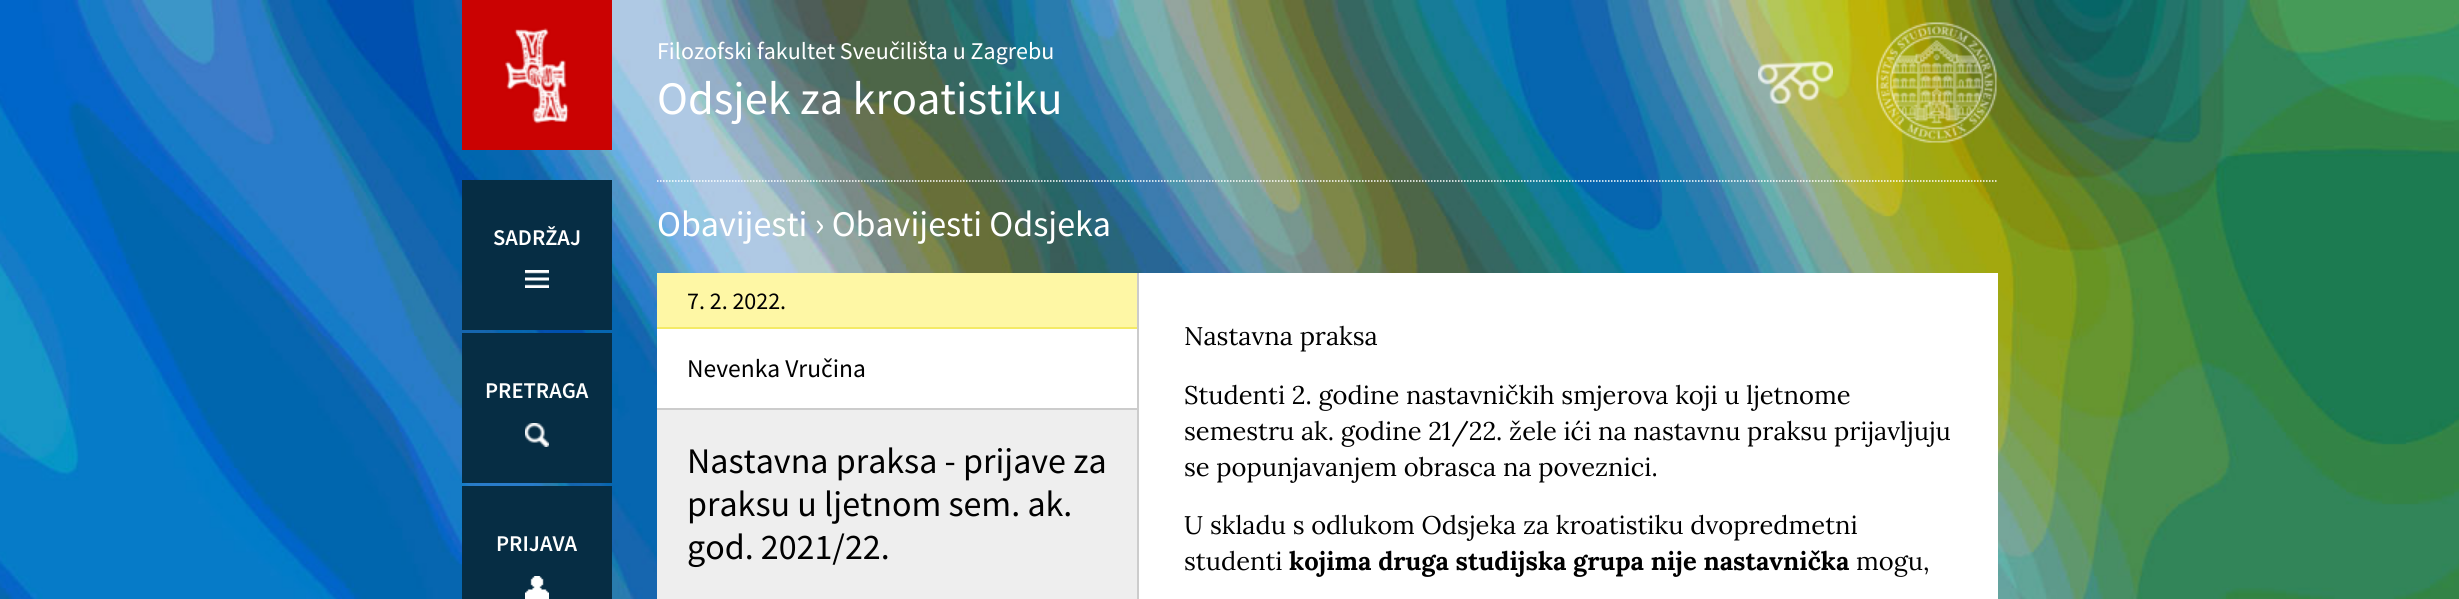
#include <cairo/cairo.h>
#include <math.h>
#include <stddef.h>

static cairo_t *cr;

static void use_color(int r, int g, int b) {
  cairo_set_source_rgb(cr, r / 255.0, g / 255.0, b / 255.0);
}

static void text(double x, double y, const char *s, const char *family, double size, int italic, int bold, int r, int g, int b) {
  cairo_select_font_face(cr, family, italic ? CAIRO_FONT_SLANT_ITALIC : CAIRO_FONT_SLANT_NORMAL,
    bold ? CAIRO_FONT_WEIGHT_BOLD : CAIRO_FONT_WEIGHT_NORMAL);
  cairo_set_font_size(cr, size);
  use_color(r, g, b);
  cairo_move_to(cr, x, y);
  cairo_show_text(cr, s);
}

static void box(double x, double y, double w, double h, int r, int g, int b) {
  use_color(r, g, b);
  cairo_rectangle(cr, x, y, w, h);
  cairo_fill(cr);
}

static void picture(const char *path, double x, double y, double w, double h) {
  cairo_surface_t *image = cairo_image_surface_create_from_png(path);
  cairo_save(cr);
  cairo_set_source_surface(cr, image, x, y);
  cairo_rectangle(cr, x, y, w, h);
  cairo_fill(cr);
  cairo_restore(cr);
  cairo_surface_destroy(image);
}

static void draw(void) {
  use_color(255, 255, 255);
  cairo_paint(cr);
  picture("img_01.png", 0, 0, 2459, 599);
  box(462, 0, 150, 150, 202, 2, 2);
  picture("img_02.png", 505, 28, 64, 96);
  box(462, 180, 150, 150, 6, 45, 68);
  picture("img_03.png", 525, 270, 24, 18);
  box(462, 333, 150, 150, 6, 45, 68);
  picture("img_04.png", 525, 423, 24, 24);
  box(462, 486, 150, 113, 6, 45, 68);
  picture("img_05.png", 525, 576, 24, 23);
  picture("img_06.png", 1758, 61, 75, 43);
  picture("img_07.png", 1876, 22, 121, 121);
  cairo_new_path(cr);
  cairo_move_to(cr, 657, 181);
  cairo_line_to(cr, 1998, 181);
  use_color(255, 255, 255);
  cairo_set_line_width(cr, 1.5);
  cairo_set_dash(cr, (double[]){1.5, 1.5}, 2, 0);
  cairo_stroke(cr);
  box(1139, 273, 859, 326, 255, 255, 255);
  box(657, 410, 480, 189, 238, 238, 238);
  box(657, 273, 480, 54, 254, 247, 165);
  box(657, 327, 480, 2, 244, 234, 102);
  box(657, 329, 480, 79, 255, 255, 255);
  box(657, 408, 480, 2, 204, 204, 204);
  box(1137, 273, 2, 326, 204, 204, 204);
  text(493, 245, "SADRŽAJ", "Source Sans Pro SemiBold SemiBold", 22.5, 0, 0, 255, 255, 255);
  text(485, 398, "PRETRAGA", "Source Sans Pro SemiBold SemiBold", 22.5, 0, 0, 255, 255, 255);
  text(496, 551, "PRIJAVA", "Source Sans Pro SemiBold SemiBold", 22.5, 0, 0, 255, 255, 255);
  text(657, 59, "Filozofski fakultet Sveučilišta u Zagrebu", "Source Sans Pro", 24, 0, 0, 255, 255, 255);
  text(657, 114, "Odsjek za kroatistiku", "Source Sans Pro", 46.5, 0, 0, 255, 255, 255);
  text(657, 236, "Obavijesti › Obavijesti Odsjeka", "Source Sans Pro", 36, 0, 0, 255, 255, 255);
  text(687, 309, "7. 2. 2022.", "Source Sans Pro", 24, 0, 0, 0, 0, 0);
  text(687, 377, "Nevenka Vručina", "Source Sans Pro", 25.5, 0, 0, 0, 0, 0);
  text(687, 473, "Nastavna praksa - prijave za", "Source Sans Pro", 36, 0, 0, 0, 0, 0);
  text(687, 516, "praksu u ljetnom sem. ak.", "Source Sans Pro", 36, 0, 0, 0, 0, 0);
  text(687, 559, "god. 2021/22.", "Source Sans Pro", 36, 0, 0, 0, 0, 0);
  text(1184, 345, "Nastavna praksa", "Lora", 25.5, 0, 0, 0, 0, 0);
  text(1184, 404, "Studenti 2. godine nastavničkih smjerova koji u ljetnome", "Lora", 25.5, 0, 0, 0, 0, 0);
  text(1184, 440, "semestru ak. godine 21/22. žele ići na nastavnu praksu prijavljuju", "Lora", 25.5, 0, 0, 0, 0, 0);
  text(1184, 476, "se popunjavanjem obrasca na poveznici.", "Lora", 25.5, 0, 0, 0, 0, 0);
  text(1184, 534, "U skladu s odlukom Odsjeka za kroatistiku dvopredmetni", "Lora", 25.5, 0, 0, 0, 0, 0);
  text(1184, 570, "studenti", "Lora", 25.5, 0, 0, 0, 0, 0);
  text(1289, 570, "kojima druga studijska grupa nije nastavnička", "Lora", 25.5, 0, 1, 0, 0, 0);
  text(1856, 570, "mogu,", "Lora", 25.5, 0, 0, 0, 0, 0);
}

int main(void) {
  cairo_surface_t *surface = cairo_image_surface_create(CAIRO_FORMAT_RGB24, 2459, 599);
  cr = cairo_create(surface);
  cairo_font_options_t *options = cairo_font_options_create();
  cairo_font_options_set_hint_metrics(options, CAIRO_HINT_METRICS_OFF);
  cairo_font_options_set_hint_style(options, CAIRO_HINT_STYLE_NONE);
  cairo_set_font_options(cr, options);
  cairo_set_miter_limit(cr, 4);
  draw();
  cairo_surface_write_to_png(surface, "out.png");
  cairo_font_options_destroy(options);
  cairo_destroy(cr);
  cairo_surface_destroy(surface);
  return 0;
}
